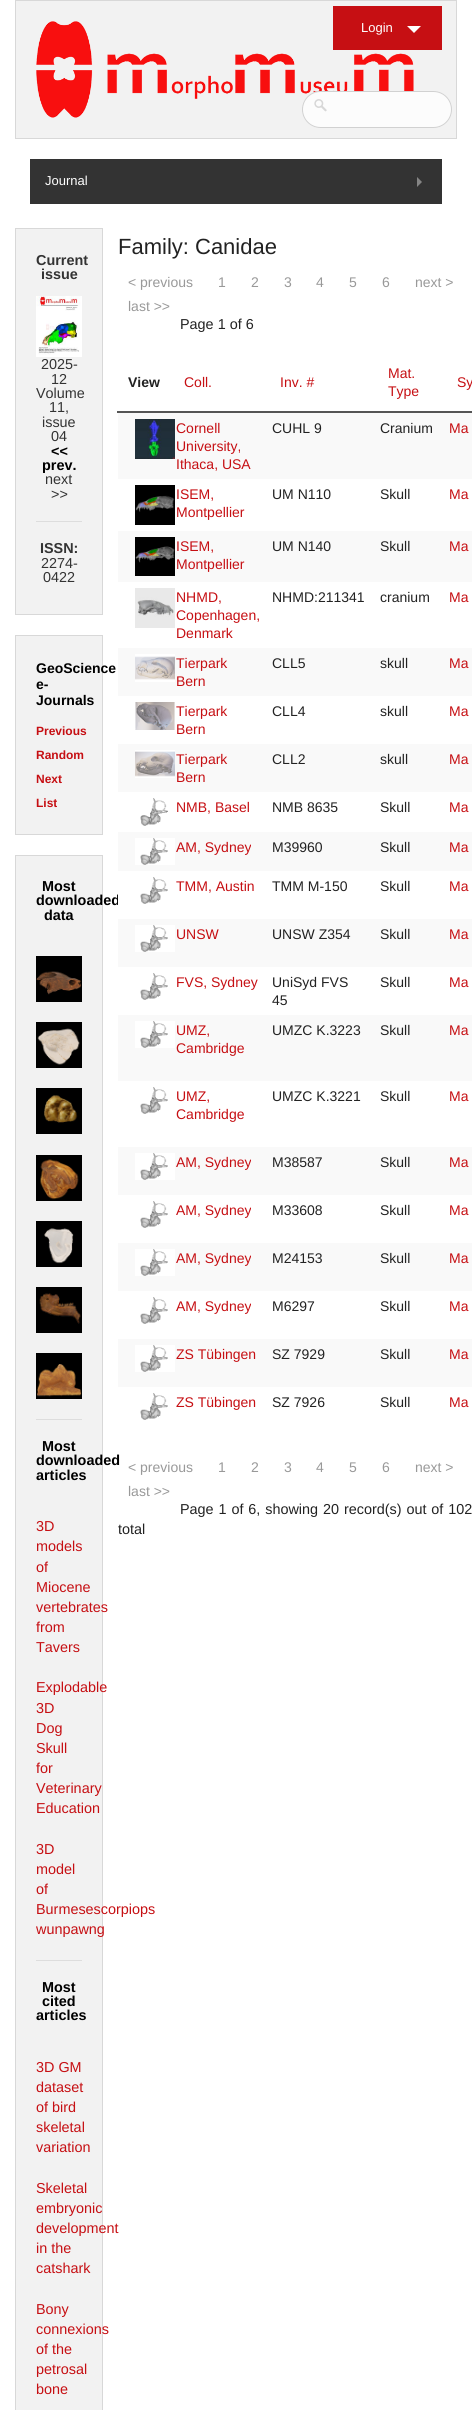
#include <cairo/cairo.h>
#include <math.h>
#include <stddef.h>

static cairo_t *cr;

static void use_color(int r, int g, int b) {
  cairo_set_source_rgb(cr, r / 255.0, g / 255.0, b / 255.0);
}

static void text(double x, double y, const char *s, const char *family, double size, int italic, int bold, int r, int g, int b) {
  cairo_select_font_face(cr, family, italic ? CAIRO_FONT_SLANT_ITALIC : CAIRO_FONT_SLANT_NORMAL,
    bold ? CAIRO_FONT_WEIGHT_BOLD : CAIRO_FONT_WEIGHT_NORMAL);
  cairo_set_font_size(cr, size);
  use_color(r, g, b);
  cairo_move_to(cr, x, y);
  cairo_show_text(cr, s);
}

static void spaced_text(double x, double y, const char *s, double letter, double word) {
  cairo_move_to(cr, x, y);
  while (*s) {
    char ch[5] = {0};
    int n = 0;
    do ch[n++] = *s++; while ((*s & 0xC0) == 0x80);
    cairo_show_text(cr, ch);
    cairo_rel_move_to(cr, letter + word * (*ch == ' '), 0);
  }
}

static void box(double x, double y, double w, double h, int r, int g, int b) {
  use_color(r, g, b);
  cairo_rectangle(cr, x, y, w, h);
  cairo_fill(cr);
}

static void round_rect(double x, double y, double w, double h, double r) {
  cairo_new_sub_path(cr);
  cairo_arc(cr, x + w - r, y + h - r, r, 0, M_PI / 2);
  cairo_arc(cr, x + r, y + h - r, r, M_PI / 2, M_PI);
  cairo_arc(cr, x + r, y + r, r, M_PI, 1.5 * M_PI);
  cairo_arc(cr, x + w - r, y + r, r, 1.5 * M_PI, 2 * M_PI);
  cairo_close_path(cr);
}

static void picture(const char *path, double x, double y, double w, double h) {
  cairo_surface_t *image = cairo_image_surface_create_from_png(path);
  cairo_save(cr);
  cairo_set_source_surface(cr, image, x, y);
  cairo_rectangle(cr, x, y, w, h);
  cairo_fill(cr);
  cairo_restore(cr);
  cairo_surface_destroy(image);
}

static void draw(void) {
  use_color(255, 255, 255);
  cairo_paint(cr);
  use_color(242, 242, 242);
  cairo_rectangle(cr, 15.5, 0.5, 441, 138);
  cairo_fill_preserve(cr);
  use_color(216, 216, 216);
  cairo_set_line_width(cr, 1);
  cairo_stroke(cr);
  picture("img_01.png", 36, 21, 378, 97);
  box(333, 6, 109, 44, 198, 15, 19);
  use_color(255, 255, 255);
  cairo_new_path(cr);
  cairo_move_to(cr, 407, 26);
  cairo_line_to(cr, 421, 26);
  cairo_line_to(cr, 414, 33);
  cairo_close_path(cr);
  cairo_fill(cr);
  use_color(252, 252, 252);
  round_rect(302, 91, 150, 37, 18.5);
  cairo_fill(cr);
  picture("img_02.png", 314, 99, 13, 13);
  round_rect(302.5, 91.5, 149, 36, 18);
  use_color(209, 209, 209);
  cairo_stroke(cr);
  box(30, 159, 412, 45, 51, 51, 51);
  use_color(133, 133, 133);
  cairo_new_path(cr);
  cairo_move_to(cr, 417, 187);
  cairo_line_to(cr, 417, 177);
  cairo_line_to(cr, 422, 182);
  cairo_close_path(cr);
  cairo_fill(cr);
  use_color(242, 242, 242);
  cairo_rectangle(cr, 15.5, 228.5, 87, 386);
  cairo_fill_preserve(cr);
  use_color(216, 216, 216);
  cairo_stroke(cr);
  picture("img_03.png", 36, 296, 46, 61);
  box(36, 521, 46, 1, 221, 221, 221);
  use_color(242, 242, 242);
  cairo_rectangle(cr, 15.5, 635.5, 87, 199);
  cairo_fill_preserve(cr);
  use_color(216, 216, 216);
  cairo_stroke(cr);
  use_color(242, 242, 242);
  cairo_rectangle(cr, 15.5, 855.5, 87, 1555);
  cairo_fill_preserve(cr);
  use_color(216, 216, 216);
  cairo_stroke(cr);
  picture("img_04.png", 36, 956, 46, 46);
  picture("img_05.png", 36, 1022, 46, 46);
  picture("img_06.png", 36, 1088, 46, 46);
  picture("img_07.png", 36, 1155, 46, 46);
  picture("img_08.png", 36, 1221, 46, 46);
  picture("img_09.png", 36, 1287, 46, 46);
  picture("img_10.png", 36, 1353, 46, 46);
  box(36, 1419, 46, 1, 221, 221, 221);
  box(36, 1960, 46, 1, 221, 221, 221);
  box(117, 411, 355, 2, 85, 85, 85);
  box(118, 413, 354, 66, 249, 249, 249);
  picture("img_11.png", 135, 419, 40, 40);
  picture("img_12.png", 135, 485, 40, 40);
  box(118, 531, 354, 51, 249, 249, 249);
  picture("img_13.png", 135, 537, 40, 39);
  picture("img_14.png", 135, 588, 40, 40);
  box(118, 648, 354, 48, 249, 249, 249);
  picture("img_15.png", 135, 654, 40, 28);
  picture("img_16.png", 135, 702, 40, 28);
  box(118, 744, 354, 48, 249, 249, 249);
  picture("img_17.png", 135, 750, 40, 28);
  picture("img_18.png", 140, 798, 28, 28);
  box(118, 832, 354, 39, 249, 249, 249);
  picture("img_19.png", 135, 838, 40, 27);
  picture("img_20.png", 140, 877, 28, 27);
  box(118, 919, 354, 48, 249, 249, 249);
  picture("img_19.png", 135, 925, 40, 27);
  picture("img_20.png", 140, 973, 28, 27);
  box(118, 1015, 354, 66, 249, 249, 249);
  picture("img_19.png", 135, 1021, 40, 27);
  picture("img_20.png", 140, 1087, 28, 27);
  box(118, 1147, 354, 48, 249, 249, 249);
  picture("img_19.png", 135, 1153, 40, 27);
  picture("img_20.png", 140, 1201, 28, 27);
  box(118, 1243, 354, 48, 249, 249, 249);
  picture("img_19.png", 135, 1249, 40, 27);
  picture("img_20.png", 140, 1297, 28, 27);
  box(118, 1339, 354, 48, 249, 249, 249);
  picture("img_19.png", 135, 1345, 40, 27);
  picture("img_20.png", 140, 1393, 28, 27);
  text(361, 32, "Login", "Liberation Sans", 13, 0, 0, 255, 255, 255);
  text(45, 185, "Journal", "Liberation Sans", 13, 0, 0, 255, 255, 255);
  text(36, 265, "Current", "Liberation Sans", 14.4, 0, 1, 51, 51, 51);
  text(41, 279, "issue", "Liberation Sans", 14.4, 0, 1, 51, 51, 51);
  text(41, 369, "2025-", "Liberation Sans", 14.4, 0, 0, 51, 51, 51);
  text(51, 384, "12", "Liberation Sans", 14.4, 0, 0, 51, 51, 51);
  text(36, 398, "Volume", "Liberation Sans", 14.4, 0, 0, 51, 51, 51);
  text(49, 412, "11,", "Liberation Sans", 14.4, 0, 0, 51, 51, 51);
  text(42, 427, "issue", "Liberation Sans", 14.4, 0, 0, 51, 51, 51);
  text(51, 441, "04", "Liberation Sans", 14.4, 0, 0, 51, 51, 51);
  text(51, 456, "<<", "Liberation Sans", 14.4, 0, 1, 0, 0, 0);
  text(42, 470, "prev.", "Liberation Sans", 14.4, 0, 1, 0, 0, 0);
  text(45, 484, "next", "Liberation Sans", 14.4, 0, 0, 51, 51, 51);
  text(51, 499, ">>", "Liberation Sans", 14.4, 0, 0, 51, 51, 51);
  text(40, 553, "ISSN:", "Liberation Sans", 14.4, 0, 1, 51, 51, 51);
  text(41, 568, "2274-", "Liberation Sans", 14.4, 0, 0, 51, 51, 51);
  text(43, 582, "0422", "Liberation Sans", 14.4, 0, 0, 51, 51, 51);
  text(36, 673, "GeoScience", "Liberation Sans", 14, 0, 1, 0, 0, 0);
  text(36, 689, "e-", "Liberation Sans", 14, 0, 1, 0, 0, 0);
  text(36, 705, "Journals", "Liberation Sans", 14, 0, 1, 0, 0, 0);
  text(36, 735, "Previous", "Liberation Sans", 12, 0, 1, 198, 15, 19);
  text(36, 759, "Random", "Liberation Sans", 12, 0, 1, 198, 15, 19);
  text(36, 783, "Next", "Liberation Sans", 12, 0, 1, 198, 15, 19);
  text(36, 807, "List", "Liberation Sans", 12, 0, 1, 198, 15, 19);
  text(42, 891, "Most", "Liberation Sans", 14.4, 0, 1, 0, 0, 0);
  text(36, 905, "downloaded", "Liberation Sans", 14.4, 0, 1, 0, 0, 0);
  text(44, 920, "data", "Liberation Sans", 14.4, 0, 1, 0, 0, 0);
  text(42, 1451, "Most", "Liberation Sans", 14.4, 0, 1, 0, 0, 0);
  text(36, 1465, "downloaded", "Liberation Sans", 14.4, 0, 1, 0, 0, 0);
  text(36, 1480, "articles", "Liberation Sans", 14.4, 0, 1, 0, 0, 0);
  text(36, 1531, "3D", "Liberation Sans", 14.4, 0, 0, 198, 15, 19);
  text(36, 1551, "models", "Liberation Sans", 14.4, 0, 0, 198, 15, 19);
  text(36, 1572, "of", "Liberation Sans", 14.4, 0, 0, 198, 15, 19);
  text(36, 1592, "Miocene", "Liberation Sans", 14.4, 0, 0, 198, 15, 19);
  text(36, 1612, "vertebrates", "Liberation Sans", 14.4, 0, 0, 198, 15, 19);
  text(36, 1632, "from", "Liberation Sans", 14.4, 0, 0, 198, 15, 19);
  text(36, 1652, "Tavers", "Liberation Sans", 14.4, 0, 0, 198, 15, 19);
  text(36, 1692, "Explodable", "Liberation Sans", 14.4, 0, 0, 198, 15, 19);
  text(36, 1713, "3D", "Liberation Sans", 14.4, 0, 0, 198, 15, 19);
  text(36, 1733, "Dog", "Liberation Sans", 14.4, 0, 0, 198, 15, 19);
  text(36, 1753, "Skull", "Liberation Sans", 14.4, 0, 0, 198, 15, 19);
  text(36, 1773, "for", "Liberation Sans", 14.4, 0, 0, 198, 15, 19);
  text(36, 1793, "Veterinary", "Liberation Sans", 14.4, 0, 0, 198, 15, 19);
  text(36, 1813, "Education", "Liberation Sans", 14.4, 0, 0, 198, 15, 19);
  text(36, 1854, "3D", "Liberation Sans", 14.4, 0, 0, 198, 15, 19);
  text(36, 1874, "model", "Liberation Sans", 14.4, 0, 0, 198, 15, 19);
  text(36, 1894, "of", "Liberation Sans", 14.4, 0, 0, 198, 15, 19);
  text(36, 1914, "Burmesescorpiops", "Liberation Sans", 14.4, 0, 0, 198, 15, 19);
  text(36, 1934, "wunpawng", "Liberation Sans", 14.4, 0, 0, 198, 15, 19);
  text(42, 1992, "Most", "Liberation Sans", 14.4, 0, 1, 0, 0, 0);
  text(42, 2006, "cited", "Liberation Sans", 14.4, 0, 1, 0, 0, 0);
  text(36, 2020, "articles", "Liberation Sans", 14.4, 0, 1, 0, 0, 0);
  text(36, 2072, "3D GM", "Liberation Sans", 14.4, 0, 0, 198, 15, 19);
  text(36, 2092, "dataset", "Liberation Sans", 14.4, 0, 0, 198, 15, 19);
  text(36, 2112, "of bird", "Liberation Sans", 14.4, 0, 0, 198, 15, 19);
  text(36, 2132, "skeletal", "Liberation Sans", 14.4, 0, 0, 198, 15, 19);
  text(36, 2152, "variation", "Liberation Sans", 14.4, 0, 0, 198, 15, 19);
  text(36, 2193, "Skeletal", "Liberation Sans", 14.4, 0, 0, 198, 15, 19);
  text(36, 2213, "embryonic", "Liberation Sans", 14.4, 0, 0, 198, 15, 19);
  text(36, 2233, "development", "Liberation Sans", 14.4, 0, 0, 198, 15, 19);
  text(36, 2253, "in the", "Liberation Sans", 14.4, 0, 0, 198, 15, 19);
  text(36, 2273, "catshark", "Liberation Sans", 14.4, 0, 0, 198, 15, 19);
  text(36, 2314, "Bony", "Liberation Sans", 14.4, 0, 0, 198, 15, 19);
  text(36, 2334, "connexions", "Liberation Sans", 14.4, 0, 0, 198, 15, 19);
  text(36, 2354, "of the", "Liberation Sans", 14.4, 0, 0, 198, 15, 19);
  text(36, 2374, "petrosal", "Liberation Sans", 14.4, 0, 0, 198, 15, 19);
  text(36, 2394, "bone", "Liberation Sans", 14.4, 0, 0, 198, 15, 19);
  text(118, 254, "Family: Canidae", "Liberation Sans", 22, 0, 0, 34, 34, 34);
  text(128, 287, "< previous", "Liberation Sans", 14, 0, 0, 153, 153, 153);
  text(218, 287, "1", "Liberation Sans", 14, 0, 0, 153, 153, 153);
  text(251, 287, "2", "Liberation Sans", 14, 0, 0, 153, 153, 153);
  text(284, 287, "3", "Liberation Sans", 14, 0, 0, 153, 153, 153);
  text(316, 287, "4", "Liberation Sans", 14, 0, 0, 153, 153, 153);
  text(349, 287, "5", "Liberation Sans", 14, 0, 0, 153, 153, 153);
  text(382, 287, "6", "Liberation Sans", 14, 0, 0, 153, 153, 153);
  text(415, 287, "next >", "Liberation Sans", 14, 0, 0, 153, 153, 153);
  text(128, 311, "last >>", "Liberation Sans", 14, 0, 0, 153, 153, 153);
  text(180, 329, "Page 1 of 6", "Liberation Sans", 14.4, 0, 0, 34, 34, 34);
  box(118, 894, 2, 11, 255, 255, 255);
  text(128, 387, "View", "Liberation Sans", 14, 0, 1, 34, 34, 34);
  text(184, 387, "Coll.", "Liberation Sans", 14, 0, 0, 198, 15, 19);
  text(280, 387, "Inv. #", "Liberation Sans", 14, 0, 0, 198, 15, 19);
  text(388, 378, "Mat.", "Liberation Sans", 14, 0, 0, 198, 15, 19);
  text(388, 396, "Type", "Liberation Sans", 14, 0, 0, 198, 15, 19);
  text(457, 387, "Sy", "Liberation Sans", 14, 0, 0, 198, 15, 19);
  text(176, 433, "Cornell", "Liberation Sans", 14, 0, 0, 198, 15, 19);
  text(176, 451, "University,", "Liberation Sans", 14, 0, 0, 198, 15, 19);
  text(176, 469, "Ithaca, USA", "Liberation Sans", 14, 0, 0, 198, 15, 19);
  text(272, 433, "CUHL 9", "Liberation Sans", 14, 0, 0, 34, 34, 34);
  text(380, 433, "Cranium", "Liberation Sans", 14, 0, 0, 34, 34, 34);
  text(449, 433, "Ma", "Liberation Sans", 14, 0, 0, 198, 15, 19);
  text(176, 499, "ISEM,", "Liberation Sans", 14, 0, 0, 198, 15, 19);
  text(176, 517, "Montpellier", "Liberation Sans", 14, 0, 0, 198, 15, 19);
  text(272, 499, "UM N110", "Liberation Sans", 14, 0, 0, 34, 34, 34);
  text(380, 499, "Skull", "Liberation Sans", 14, 0, 0, 34, 34, 34);
  text(449, 499, "Ma", "Liberation Sans", 14, 0, 0, 198, 15, 19);
  text(176, 551, "ISEM,", "Liberation Sans", 14, 0, 0, 198, 15, 19);
  text(176, 569, "Montpellier", "Liberation Sans", 14, 0, 0, 198, 15, 19);
  text(272, 551, "UM N140", "Liberation Sans", 14, 0, 0, 34, 34, 34);
  text(380, 551, "Skull", "Liberation Sans", 14, 0, 0, 34, 34, 34);
  text(449, 551, "Ma", "Liberation Sans", 14, 0, 0, 198, 15, 19);
  text(176, 602, "NHMD,", "Liberation Sans", 14, 0, 0, 198, 15, 19);
  text(176, 620, "Copenhagen,", "Liberation Sans", 14, 0, 0, 198, 15, 19);
  text(176, 638, "Denmark", "Liberation Sans", 14, 0, 0, 198, 15, 19);
  text(272, 602, "NHMD:211341", "Liberation Sans", 14, 0, 0, 34, 34, 34);
  text(380, 602, "cranium", "Liberation Sans", 14, 0, 0, 34, 34, 34);
  text(449, 602, "Ma", "Liberation Sans", 14, 0, 0, 198, 15, 19);
  text(176, 668, "Tierpark", "Liberation Sans", 14, 0, 0, 198, 15, 19);
  text(176, 686, "Bern", "Liberation Sans", 14, 0, 0, 198, 15, 19);
  text(272, 668, "CLL5", "Liberation Sans", 14, 0, 0, 34, 34, 34);
  text(380, 668, "skull", "Liberation Sans", 14, 0, 0, 34, 34, 34);
  text(449, 668, "Ma", "Liberation Sans", 14, 0, 0, 198, 15, 19);
  text(176, 716, "Tierpark", "Liberation Sans", 14, 0, 0, 198, 15, 19);
  text(176, 734, "Bern", "Liberation Sans", 14, 0, 0, 198, 15, 19);
  text(272, 716, "CLL4", "Liberation Sans", 14, 0, 0, 34, 34, 34);
  text(380, 716, "skull", "Liberation Sans", 14, 0, 0, 34, 34, 34);
  text(449, 716, "Ma", "Liberation Sans", 14, 0, 0, 198, 15, 19);
  text(176, 764, "Tierpark", "Liberation Sans", 14, 0, 0, 198, 15, 19);
  text(176, 782, "Bern", "Liberation Sans", 14, 0, 0, 198, 15, 19);
  text(272, 764, "CLL2", "Liberation Sans", 14, 0, 0, 34, 34, 34);
  text(380, 764, "skull", "Liberation Sans", 14, 0, 0, 34, 34, 34);
  text(449, 764, "Ma", "Liberation Sans", 14, 0, 0, 198, 15, 19);
  text(176, 812, "NMB, Basel", "Liberation Sans", 14, 0, 0, 198, 15, 19);
  text(272, 812, "NMB 8635", "Liberation Sans", 14, 0, 0, 34, 34, 34);
  text(380, 812, "Skull", "Liberation Sans", 14, 0, 0, 34, 34, 34);
  text(449, 812, "Ma", "Liberation Sans", 14, 0, 0, 198, 15, 19);
  text(176, 852, "AM, Sydney", "Liberation Sans", 14, 0, 0, 198, 15, 19);
  text(272, 852, "M39960", "Liberation Sans", 14, 0, 0, 34, 34, 34);
  text(380, 852, "Skull", "Liberation Sans", 14, 0, 0, 34, 34, 34);
  text(449, 852, "Ma", "Liberation Sans", 14, 0, 0, 198, 15, 19);
  text(176, 891, "TMM, Austin", "Liberation Sans", 14, 0, 0, 198, 15, 19);
  text(272, 891, "TMM M-150", "Liberation Sans", 14, 0, 0, 34, 34, 34);
  text(380, 891, "Skull", "Liberation Sans", 14, 0, 0, 34, 34, 34);
  text(449, 891, "Ma", "Liberation Sans", 14, 0, 0, 198, 15, 19);
  text(176, 939, "UNSW", "Liberation Sans", 14, 0, 0, 198, 15, 19);
  text(272, 939, "UNSW Z354", "Liberation Sans", 14, 0, 0, 34, 34, 34);
  text(380, 939, "Skull", "Liberation Sans", 14, 0, 0, 34, 34, 34);
  text(449, 939, "Ma", "Liberation Sans", 14, 0, 0, 198, 15, 19);
  text(176, 987, "FVS, Sydney", "Liberation Sans", 14, 0, 0, 198, 15, 19);
  text(272, 987, "UniSyd FVS", "Liberation Sans", 14, 0, 0, 34, 34, 34);
  text(272, 1005, "45", "Liberation Sans", 14, 0, 0, 34, 34, 34);
  text(380, 987, "Skull", "Liberation Sans", 14, 0, 0, 34, 34, 34);
  text(449, 987, "Ma", "Liberation Sans", 14, 0, 0, 198, 15, 19);
  text(176, 1035, "UMZ,", "Liberation Sans", 14, 0, 0, 198, 15, 19);
  text(176, 1053, "Cambridge", "Liberation Sans", 14, 0, 0, 198, 15, 19);
  text(272, 1035, "UMZC K.3223", "Liberation Sans", 14, 0, 0, 34, 34, 34);
  text(380, 1035, "Skull", "Liberation Sans", 14, 0, 0, 34, 34, 34);
  text(449, 1035, "Ma", "Liberation Sans", 14, 0, 0, 198, 15, 19);
  text(176, 1101, "UMZ,", "Liberation Sans", 14, 0, 0, 198, 15, 19);
  text(176, 1119, "Cambridge", "Liberation Sans", 14, 0, 0, 198, 15, 19);
  text(272, 1101, "UMZC K.3221", "Liberation Sans", 14, 0, 0, 34, 34, 34);
  text(380, 1101, "Skull", "Liberation Sans", 14, 0, 0, 34, 34, 34);
  text(449, 1101, "Ma", "Liberation Sans", 14, 0, 0, 198, 15, 19);
  text(176, 1167, "AM, Sydney", "Liberation Sans", 14, 0, 0, 198, 15, 19);
  text(272, 1167, "M38587", "Liberation Sans", 14, 0, 0, 34, 34, 34);
  text(380, 1167, "Skull", "Liberation Sans", 14, 0, 0, 34, 34, 34);
  text(449, 1167, "Ma", "Liberation Sans", 14, 0, 0, 198, 15, 19);
  text(176, 1215, "AM, Sydney", "Liberation Sans", 14, 0, 0, 198, 15, 19);
  text(272, 1215, "M33608", "Liberation Sans", 14, 0, 0, 34, 34, 34);
  text(380, 1215, "Skull", "Liberation Sans", 14, 0, 0, 34, 34, 34);
  text(449, 1215, "Ma", "Liberation Sans", 14, 0, 0, 198, 15, 19);
  text(176, 1263, "AM, Sydney", "Liberation Sans", 14, 0, 0, 198, 15, 19);
  text(272, 1263, "M24153", "Liberation Sans", 14, 0, 0, 34, 34, 34);
  text(380, 1263, "Skull", "Liberation Sans", 14, 0, 0, 34, 34, 34);
  text(449, 1263, "Ma", "Liberation Sans", 14, 0, 0, 198, 15, 19);
  text(176, 1311, "AM, Sydney", "Liberation Sans", 14, 0, 0, 198, 15, 19);
  text(272, 1311, "M6297", "Liberation Sans", 14, 0, 0, 34, 34, 34);
  text(380, 1311, "Skull", "Liberation Sans", 14, 0, 0, 34, 34, 34);
  text(449, 1311, "Ma", "Liberation Sans", 14, 0, 0, 198, 15, 19);
  text(176, 1359, "ZS Tübingen", "Liberation Sans", 14, 0, 0, 198, 15, 19);
  text(272, 1359, "SZ 7929", "Liberation Sans", 14, 0, 0, 34, 34, 34);
  text(380, 1359, "Skull", "Liberation Sans", 14, 0, 0, 34, 34, 34);
  text(449, 1359, "Ma", "Liberation Sans", 14, 0, 0, 198, 15, 19);
  text(176, 1407, "ZS Tübingen", "Liberation Sans", 14, 0, 0, 198, 15, 19);
  text(272, 1407, "SZ 7926", "Liberation Sans", 14, 0, 0, 34, 34, 34);
  text(380, 1407, "Skull", "Liberation Sans", 14, 0, 0, 34, 34, 34);
  text(449, 1407, "Ma", "Liberation Sans", 14, 0, 0, 198, 15, 19);
  text(128, 1472, "< previous", "Liberation Sans", 14, 0, 0, 153, 153, 153);
  text(218, 1472, "1", "Liberation Sans", 14, 0, 0, 153, 153, 153);
  text(251, 1472, "2", "Liberation Sans", 14, 0, 0, 153, 153, 153);
  text(284, 1472, "3", "Liberation Sans", 14, 0, 0, 153, 153, 153);
  text(316, 1472, "4", "Liberation Sans", 14, 0, 0, 153, 153, 153);
  text(349, 1472, "5", "Liberation Sans", 14, 0, 0, 153, 153, 153);
  text(382, 1472, "6", "Liberation Sans", 14, 0, 0, 153, 153, 153);
  text(415, 1472, "next >", "Liberation Sans", 14, 0, 0, 153, 153, 153);
  text(128, 1496, "last >>", "Liberation Sans", 14, 0, 0, 153, 153, 153);
  cairo_set_font_size(cr, 14.4);
  use_color(34, 34, 34);
  spaced_text(180, 1514, "Page 1 of 6, showing 20 record(s) out of 102", 0, 0.9);
  text(118, 1534, "total", "Liberation Sans", 14.4, 0, 0, 34, 34, 34);
}

int main(void) {
  cairo_surface_t *surface = cairo_image_surface_create(CAIRO_FORMAT_RGB24, 472, 2410);
  cr = cairo_create(surface);
  cairo_font_options_t *options = cairo_font_options_create();
  cairo_font_options_set_hint_metrics(options, CAIRO_HINT_METRICS_OFF);
  cairo_font_options_set_hint_style(options, CAIRO_HINT_STYLE_NONE);
  cairo_set_font_options(cr, options);
  cairo_set_miter_limit(cr, 4);
  draw();
  cairo_surface_write_to_png(surface, "out.png");
  cairo_font_options_destroy(options);
  cairo_destroy(cr);
  cairo_surface_destroy(surface);
  return 0;
}
